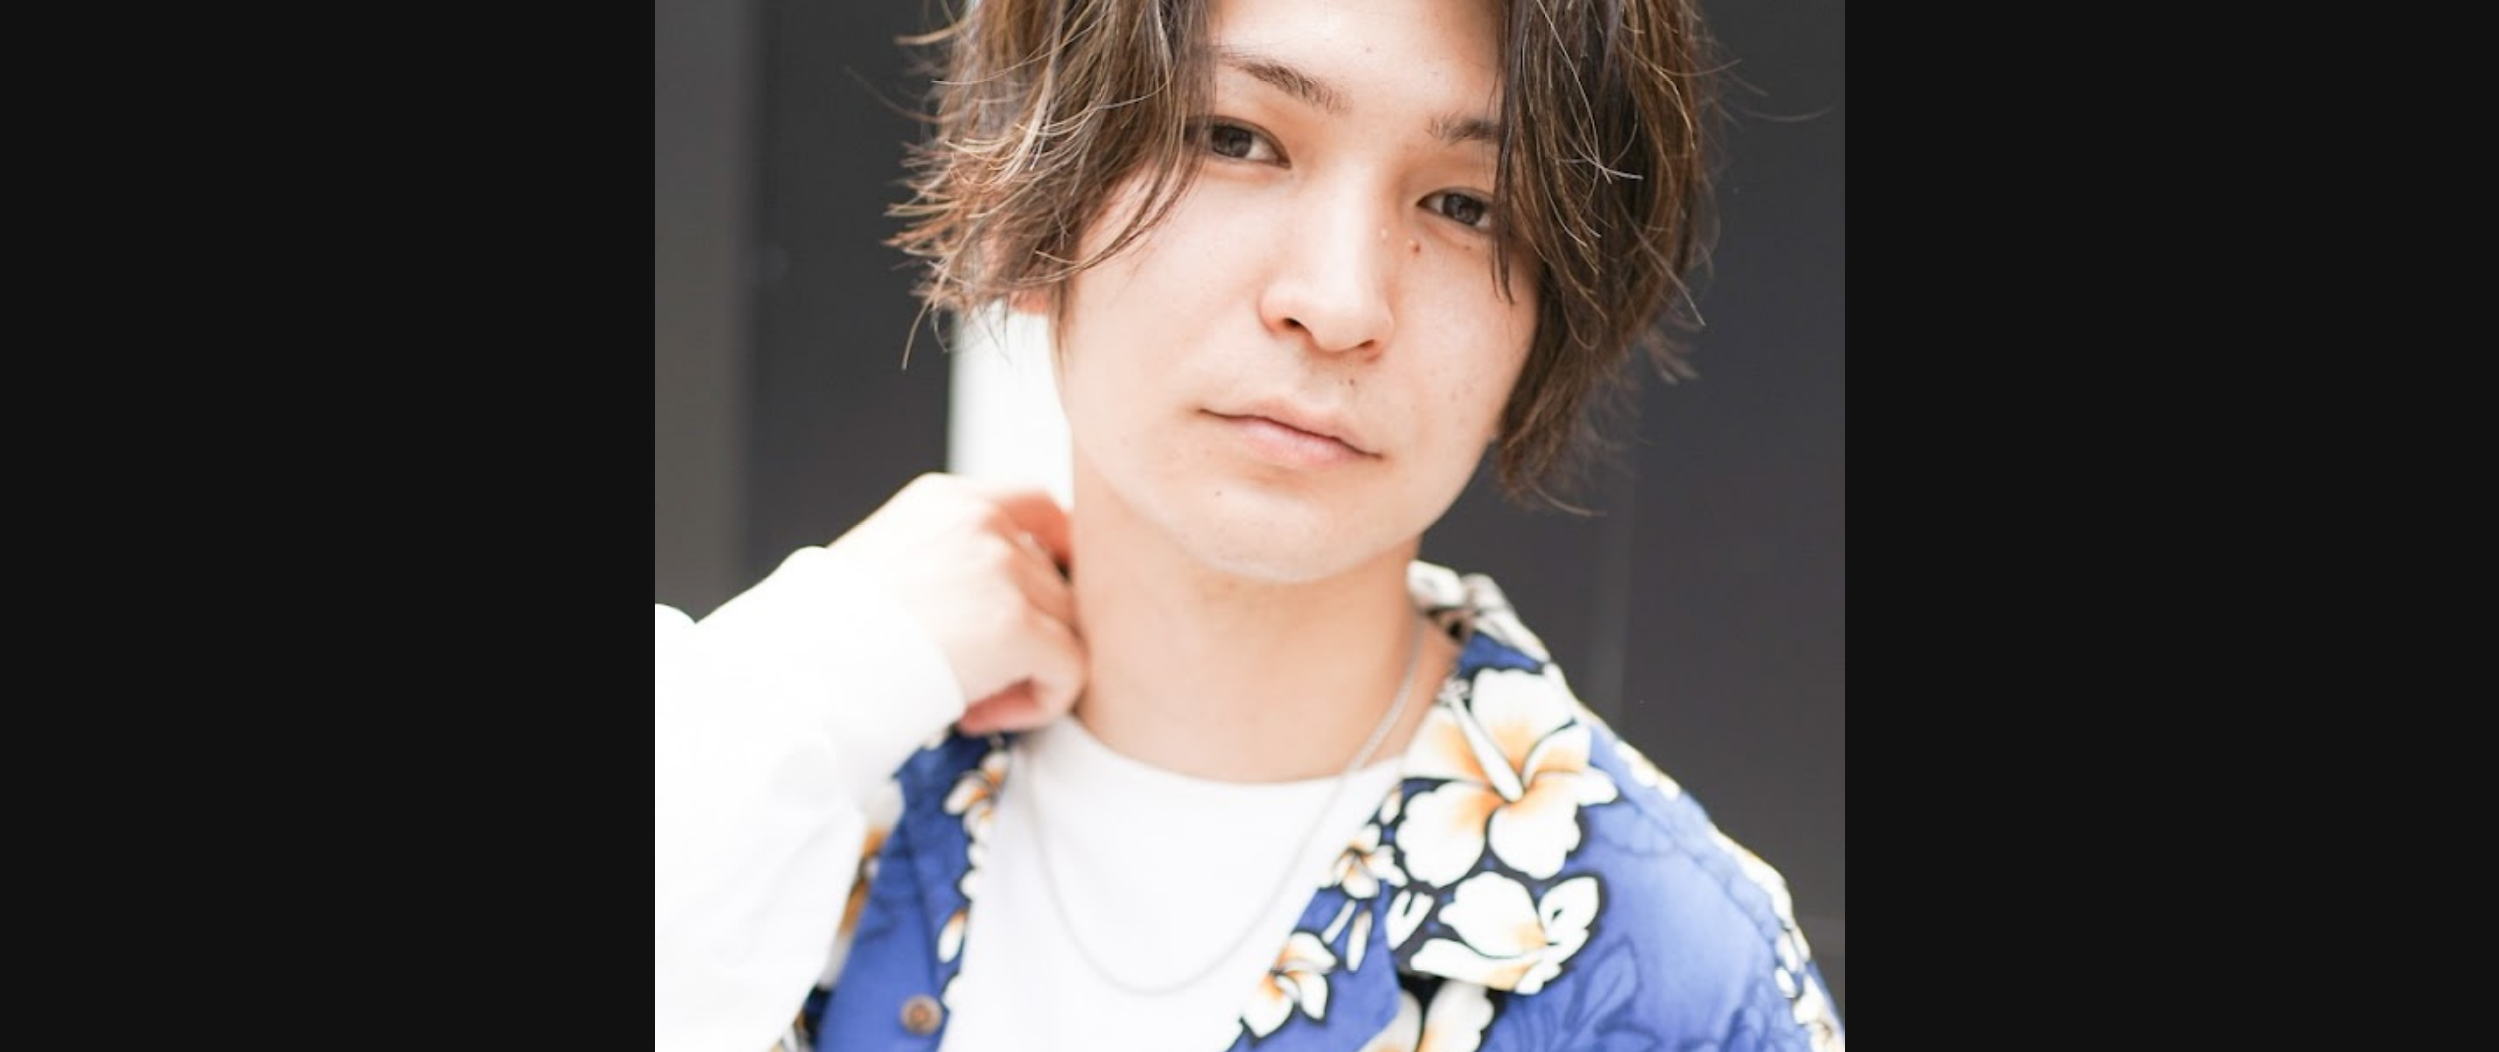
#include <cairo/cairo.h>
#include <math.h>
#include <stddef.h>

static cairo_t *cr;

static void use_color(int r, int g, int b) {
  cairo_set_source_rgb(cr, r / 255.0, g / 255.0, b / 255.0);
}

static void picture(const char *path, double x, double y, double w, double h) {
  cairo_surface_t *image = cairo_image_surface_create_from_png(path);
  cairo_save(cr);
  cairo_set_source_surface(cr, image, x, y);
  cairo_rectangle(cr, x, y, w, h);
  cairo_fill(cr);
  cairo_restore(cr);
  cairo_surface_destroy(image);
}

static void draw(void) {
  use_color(17, 17, 17);
  cairo_paint(cr);
  picture("img_01.png", 655, 0, 1190, 1052);
}

int main(void) {
  cairo_surface_t *surface = cairo_image_surface_create(CAIRO_FORMAT_RGB24, 2499, 1052);
  cr = cairo_create(surface);
  cairo_font_options_t *options = cairo_font_options_create();
  cairo_font_options_set_hint_metrics(options, CAIRO_HINT_METRICS_OFF);
  cairo_font_options_set_hint_style(options, CAIRO_HINT_STYLE_NONE);
  cairo_set_font_options(cr, options);
  cairo_set_miter_limit(cr, 4);
  draw();
  cairo_surface_write_to_png(surface, "out.png");
  cairo_font_options_destroy(options);
  cairo_destroy(cr);
  cairo_surface_destroy(surface);
  return 0;
}
